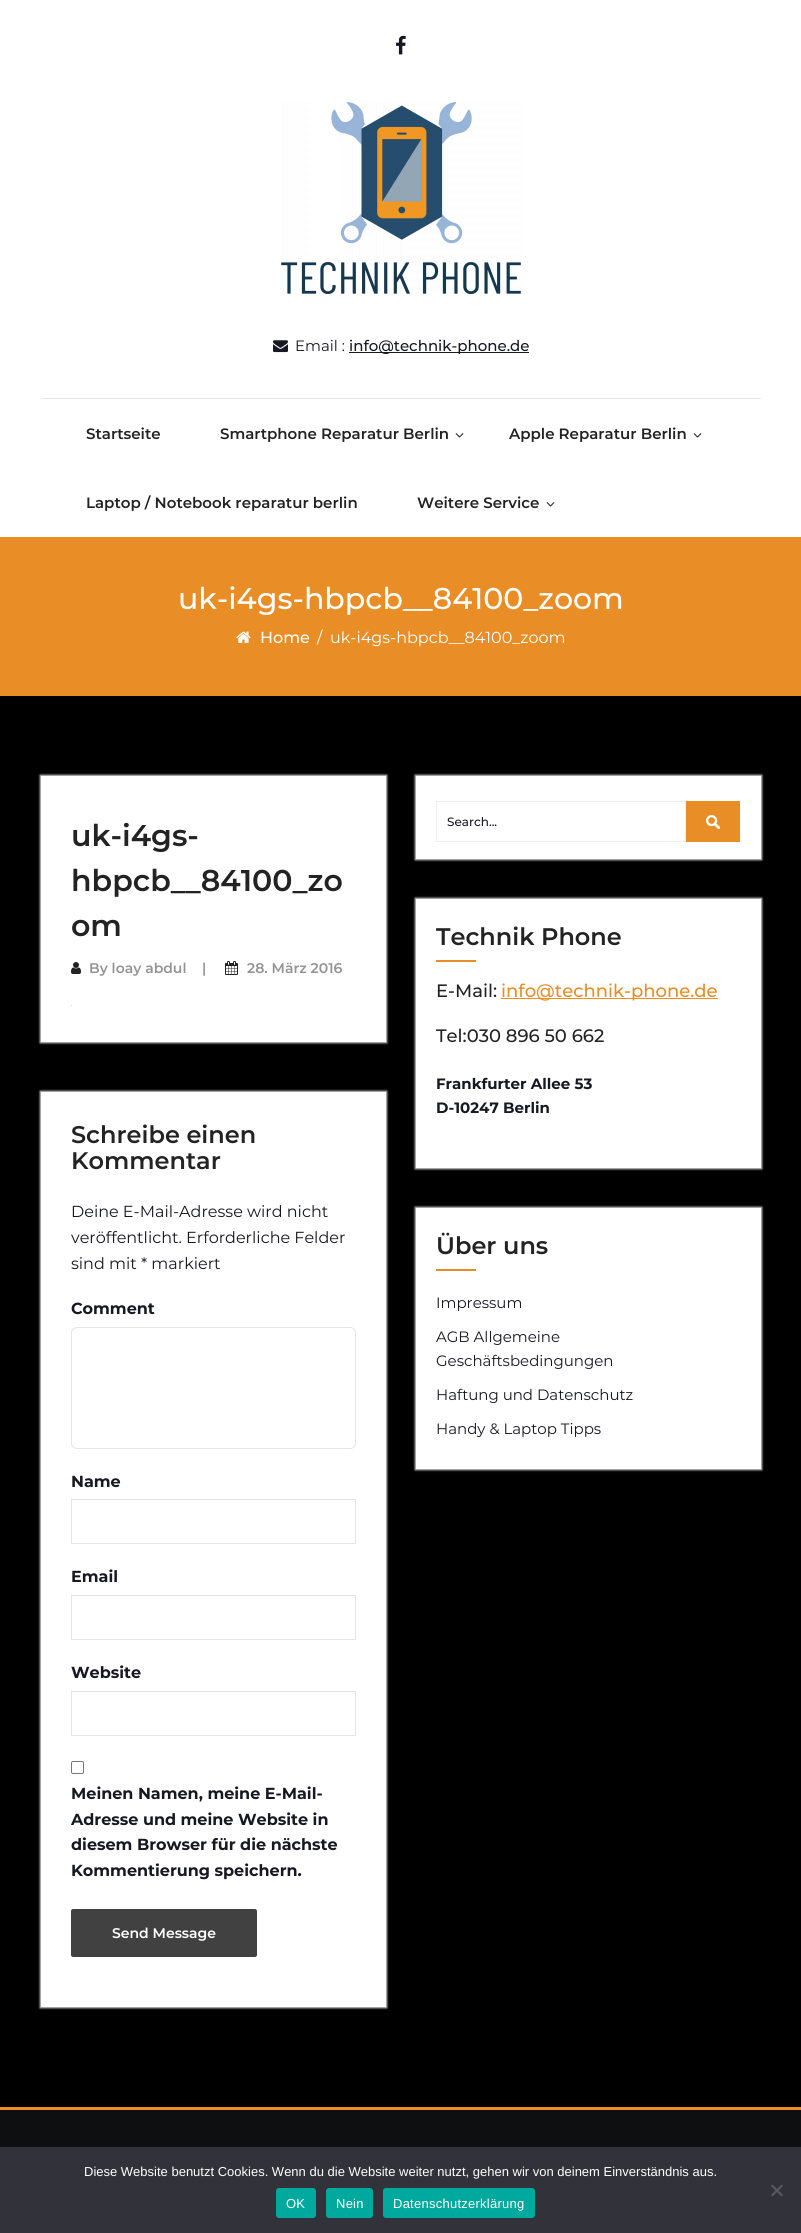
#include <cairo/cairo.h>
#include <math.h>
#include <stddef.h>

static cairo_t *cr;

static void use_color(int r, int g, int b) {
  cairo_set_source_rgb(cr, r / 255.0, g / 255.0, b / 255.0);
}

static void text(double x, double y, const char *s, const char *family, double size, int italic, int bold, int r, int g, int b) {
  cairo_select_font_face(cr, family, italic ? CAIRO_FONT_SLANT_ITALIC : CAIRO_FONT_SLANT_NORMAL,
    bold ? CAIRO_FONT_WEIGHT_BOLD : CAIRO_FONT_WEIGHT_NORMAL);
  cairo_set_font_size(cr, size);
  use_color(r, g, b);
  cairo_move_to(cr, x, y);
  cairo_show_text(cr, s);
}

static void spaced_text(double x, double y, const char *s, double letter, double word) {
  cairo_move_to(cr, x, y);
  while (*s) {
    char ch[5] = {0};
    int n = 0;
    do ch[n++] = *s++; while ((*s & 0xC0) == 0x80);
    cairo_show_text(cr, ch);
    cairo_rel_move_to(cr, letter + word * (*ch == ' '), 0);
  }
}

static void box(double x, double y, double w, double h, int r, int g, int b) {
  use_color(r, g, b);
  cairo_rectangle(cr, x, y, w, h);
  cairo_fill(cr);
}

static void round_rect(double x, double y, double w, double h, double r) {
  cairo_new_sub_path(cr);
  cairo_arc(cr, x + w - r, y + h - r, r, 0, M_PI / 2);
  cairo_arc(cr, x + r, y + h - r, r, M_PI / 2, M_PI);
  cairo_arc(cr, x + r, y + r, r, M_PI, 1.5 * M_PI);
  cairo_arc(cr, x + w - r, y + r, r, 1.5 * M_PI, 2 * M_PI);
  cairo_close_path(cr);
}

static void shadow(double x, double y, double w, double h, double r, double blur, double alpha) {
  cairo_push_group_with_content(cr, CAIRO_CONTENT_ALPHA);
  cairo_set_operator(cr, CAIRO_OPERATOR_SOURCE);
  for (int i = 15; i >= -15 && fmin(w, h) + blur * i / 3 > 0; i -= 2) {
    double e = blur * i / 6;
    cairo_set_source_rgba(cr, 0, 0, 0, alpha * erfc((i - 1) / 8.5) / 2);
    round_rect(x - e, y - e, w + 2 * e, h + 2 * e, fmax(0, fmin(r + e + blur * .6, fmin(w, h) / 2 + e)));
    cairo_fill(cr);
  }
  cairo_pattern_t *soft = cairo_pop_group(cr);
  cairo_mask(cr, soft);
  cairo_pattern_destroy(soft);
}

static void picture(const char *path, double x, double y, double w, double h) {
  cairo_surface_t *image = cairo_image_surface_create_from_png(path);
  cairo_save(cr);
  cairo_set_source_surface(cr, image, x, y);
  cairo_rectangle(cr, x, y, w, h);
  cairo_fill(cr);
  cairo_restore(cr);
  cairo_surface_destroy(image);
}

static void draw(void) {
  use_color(0, 0, 0);
  cairo_paint(cr);
  box(0, 0, 801, 537, 255, 255, 255);
  picture("img_01.png", 396, 35, 10, 20);
  picture("img_02.png", 281, 102, 240, 192);
  picture("img_03.png", 273, 340, 15, 13);
  box(349, 352, 180, 1, 23, 24, 34);
  box(41, 398, 720, 1, 229, 229, 229);
  picture("img_04.png", 455, 433, 9, 5);
  picture("img_04.png", 693, 433, 9, 5);
  picture("img_04.png", 546, 502, 9, 5);
  box(0, 537, 801, 159, 233, 141, 38);
  picture("img_05.png", 236, 631, 15, 12);
  use_color(230, 230, 230);
  shadow(40, 775, 347, 268, 0, 1, 1);
  box(41, 776, 345, 266, 255, 255, 255);
  picture("img_06.png", 71, 962, 10, 12);
  picture("img_07.png", 225, 961, 13, 14);
  box(71, 1005, 1, 1, 219, 221, 217);
  use_color(230, 230, 230);
  shadow(40, 1091, 347, 917, 0, 1, 1);
  box(41, 1092, 345, 915, 255, 255, 255);
  round_rect(71.5, 1327.5, 284, 121, 5.5);
  use_color(229, 229, 229);
  cairo_set_line_width(cr, 1);
  cairo_stroke(cr);
  cairo_rectangle(cr, 71.5, 1499.5, 284, 44);
  cairo_stroke(cr);
  cairo_rectangle(cr, 71.5, 1595.5, 284, 44);
  cairo_stroke(cr);
  cairo_rectangle(cr, 71.5, 1691.5, 284, 44);
  cairo_stroke(cr);
  round_rect(71.5, 1761.5, 12, 12, 1.5);
  use_color(118, 118, 118);
  cairo_stroke(cr);
  use_color(65, 65, 65);
  round_rect(71, 1909, 186, 48, 2);
  cairo_fill(cr);
  use_color(230, 230, 230);
  shadow(415, 775, 347, 85, 0, 1, 1);
  box(416, 776, 345, 83, 255, 255, 255);
  cairo_rectangle(cr, 436.5, 801.5, 249, 40);
  use_color(238, 238, 238);
  cairo_stroke(cr);
  box(686, 801, 54, 41, 233, 141, 38);
  picture("img_08.png", 706, 815, 14, 14);
  use_color(230, 230, 230);
  shadow(415, 898, 347, 271, 0, 1, 1);
  box(416, 899, 345, 269, 255, 255, 255);
  box(436, 960, 40, 2, 233, 141, 38);
  box(501, 998, 217, 1, 233, 141, 38);
  use_color(230, 230, 230);
  shadow(415, 1207, 347, 263, 0, 1, 1);
  box(416, 1208, 345, 261, 255, 255, 255);
  box(436, 1269, 40, 2, 233, 141, 38);
  box(0, 2107, 801, 3, 233, 141, 38);
  box(0, 2110, 801, 37, 14, 15, 16);
  box(0, 2147, 801, 86, 50, 50, 58);
  use_color(89, 89, 93);
  cairo_new_path(cr);
  cairo_move_to(cr, 781.5, 2184.5);
  cairo_line_to(cr, 783, 2186);
  cairo_line_to(cr, 772.5, 2196.5);
  cairo_line_to(cr, 771, 2195);
  cairo_close_path(cr);
  cairo_fill(cr);
  cairo_new_path(cr);
  cairo_move_to(cr, 771, 2186);
  cairo_line_to(cr, 772.5, 2184.5);
  cairo_line_to(cr, 783, 2195);
  cairo_line_to(cr, 781.5, 2196.5);
  cairo_close_path(cr);
  cairo_fill(cr);
  use_color(0, 169, 157);
  round_rect(276, 2188, 40, 30, 3);
  cairo_fill(cr);
  round_rect(326, 2188, 47, 30, 3);
  cairo_fill(cr);
  round_rect(383, 2188, 152, 30, 3);
  cairo_fill(cr);
  text(295, 351, "Email :", "Montserrat", 15, 0, 0, 23, 24, 34);
  text(349, 351, "info@technik-phone.de", "Montserrat Medium", 15, 0, 0, 23, 24, 34);
  text(86, 439, "Startseite", "Montserrat SemiBold", 15, 0, 0, 35, 35, 35);
  text(220, 439, "Smartphone Reparatur Berlin", "Montserrat SemiBold", 15, 0, 0, 35, 35, 35);
  text(509, 439, "Apple Reparatur Berlin", "Montserrat SemiBold", 15, 0, 0, 35, 35, 35);
  text(86, 508, "Laptop / Notebook reparatur berlin", "Montserrat SemiBold", 15, 0, 0, 35, 35, 35);
  text(417, 508, "Weitere Service", "Montserrat SemiBold", 15, 0, 0, 35, 35, 35);
  text(178, 609, "uk-i4gs-hbpcb__84100_zoom", "Montserrat Medium", 30, 0, 0, 255, 255, 255);
  text(260, 643, "Home", "Montserrat Medium", 16, 0, 0, 255, 255, 255);
  text(317, 643, "/", "Montserrat", 16, 0, 0, 255, 255, 255);
  text(330, 643, "uk-i4gs-hbpcb__84100_zoom", "Montserrat", 16, 0, 0, 255, 255, 255);
  text(71, 846, "uk-i4gs-", "Montserrat SemiBold", 30, 0, 0, 35, 35, 35);
  text(71, 891, "hbpcb__84100_zo", "Montserrat SemiBold", 30, 0, 0, 35, 35, 35);
  text(71, 936, "om", "Montserrat SemiBold", 30, 0, 0, 35, 35, 35);
  text(89, 973, "By loay abdul", "Montserrat SemiBold", 14, 0, 0, 147, 147, 147);
  text(202, 973, "|", "Montserrat SemiBold", 14, 0, 0, 147, 147, 147);
  text(247, 973, "28. März 2016", "Montserrat SemiBold", 14, 0, 0, 147, 147, 147);
  text(71, 1143, "Schreibe einen", "Montserrat SemiBold", 24, 0, 0, 35, 35, 35);
  text(71, 1169, "Kommentar", "Montserrat SemiBold", 24, 0, 0, 35, 35, 35);
  text(71, 1217, "Deine E-Mail-Adresse wird nicht", "Montserrat", 16, 0, 0, 23, 24, 34);
  text(71, 1243, "veröffentlicht. Erforderliche Felder", "Montserrat", 16, 0, 0, 23, 24, 34);
  text(71, 1269, "sind mit * markiert", "Montserrat", 16, 0, 0, 23, 24, 34);
  text(71, 1314, "Comment", "Montserrat", 16, 0, 1, 23, 24, 34);
  text(71, 1487, "Name", "Montserrat", 16, 0, 1, 23, 24, 34);
  text(71, 1582, "Email", "Montserrat", 16, 0, 1, 23, 24, 34);
  text(71, 1678, "Website", "Montserrat", 16, 0, 1, 23, 24, 34);
  text(71, 1799, "Meinen Namen, meine E-Mail-", "Montserrat", 16, 0, 1, 23, 24, 34);
  text(71, 1825, "Adresse und meine Website in", "Montserrat", 16, 0, 1, 23, 24, 34);
  text(71, 1850, "diesem Browser für die nächste", "Montserrat", 16, 0, 1, 23, 24, 34);
  text(71, 1876, "Kommentierung speichern.", "Montserrat", 16, 0, 1, 23, 24, 34);
  text(112, 1938, "Send Message", "Montserrat SemiBold", 14, 0, 0, 255, 255, 255);
  text(447, 826, "Search...", "Montserrat Medium", 12, 0, 0, 23, 24, 34);
  text(436, 945, "Technik Phone", "Montserrat SemiBold", 24, 0, 0, 35, 35, 35);
  text(436, 997, "E-Mail:", "Montserrat Medium", 18, 0, 0, 35, 35, 35);
  text(501, 997, "info@technik-phone.de", "Montserrat Medium", 18, 0, 0, 233, 141, 38);
  text(436, 1042, "Tel:030 896 50 662", "Montserrat Medium", 18, 0, 0, 35, 35, 35);
  text(436, 1089, "Frankfurter Allee 53", "Montserrat", 15, 0, 1, 23, 24, 34);
  text(436, 1113, "D-10247 Berlin", "Montserrat", 15, 0, 1, 23, 24, 34);
  text(436, 1254, "Über uns", "Montserrat SemiBold", 24, 0, 0, 35, 35, 35);
  text(436, 1308, "Impressum", "Montserrat", 15, 0, 0, 23, 24, 34);
  text(436, 1342, "AGB Allgemeine", "Montserrat", 15, 0, 0, 23, 24, 34);
  text(436, 1366, "Geschäftsbedingungen", "Montserrat", 15, 0, 0, 23, 24, 34);
  text(436, 1400, "Haftung und Datenschutz", "Montserrat", 15, 0, 0, 23, 24, 34);
  text(436, 1434, "Handy & Laptop Tipps", "Montserrat", 15, 0, 0, 23, 24, 34);
  text(84, 2176, "Diese Website benutzt Cookies. Wenn du die Website weiter nutzt, gehen wir von deinem Einverständnis aus.", "Liberation Sans", 13, 0, 0, 255, 255, 255);
  spaced_text(286, 2208, "OK", 0.25, 0);
  spaced_text(336, 2208, "Nein", 0.25, 0);
  spaced_text(393, 2208, "Datenschutzerklärung", 0.25, 0);
}

int main(void) {
  cairo_surface_t *surface = cairo_image_surface_create(CAIRO_FORMAT_RGB24, 801, 2233);
  cr = cairo_create(surface);
  cairo_font_options_t *options = cairo_font_options_create();
  cairo_font_options_set_hint_metrics(options, CAIRO_HINT_METRICS_OFF);
  cairo_font_options_set_hint_style(options, CAIRO_HINT_STYLE_NONE);
  cairo_set_font_options(cr, options);
  cairo_set_miter_limit(cr, 4);
  draw();
  cairo_surface_write_to_png(surface, "out.png");
  cairo_font_options_destroy(options);
  cairo_destroy(cr);
  cairo_surface_destroy(surface);
  return 0;
}
